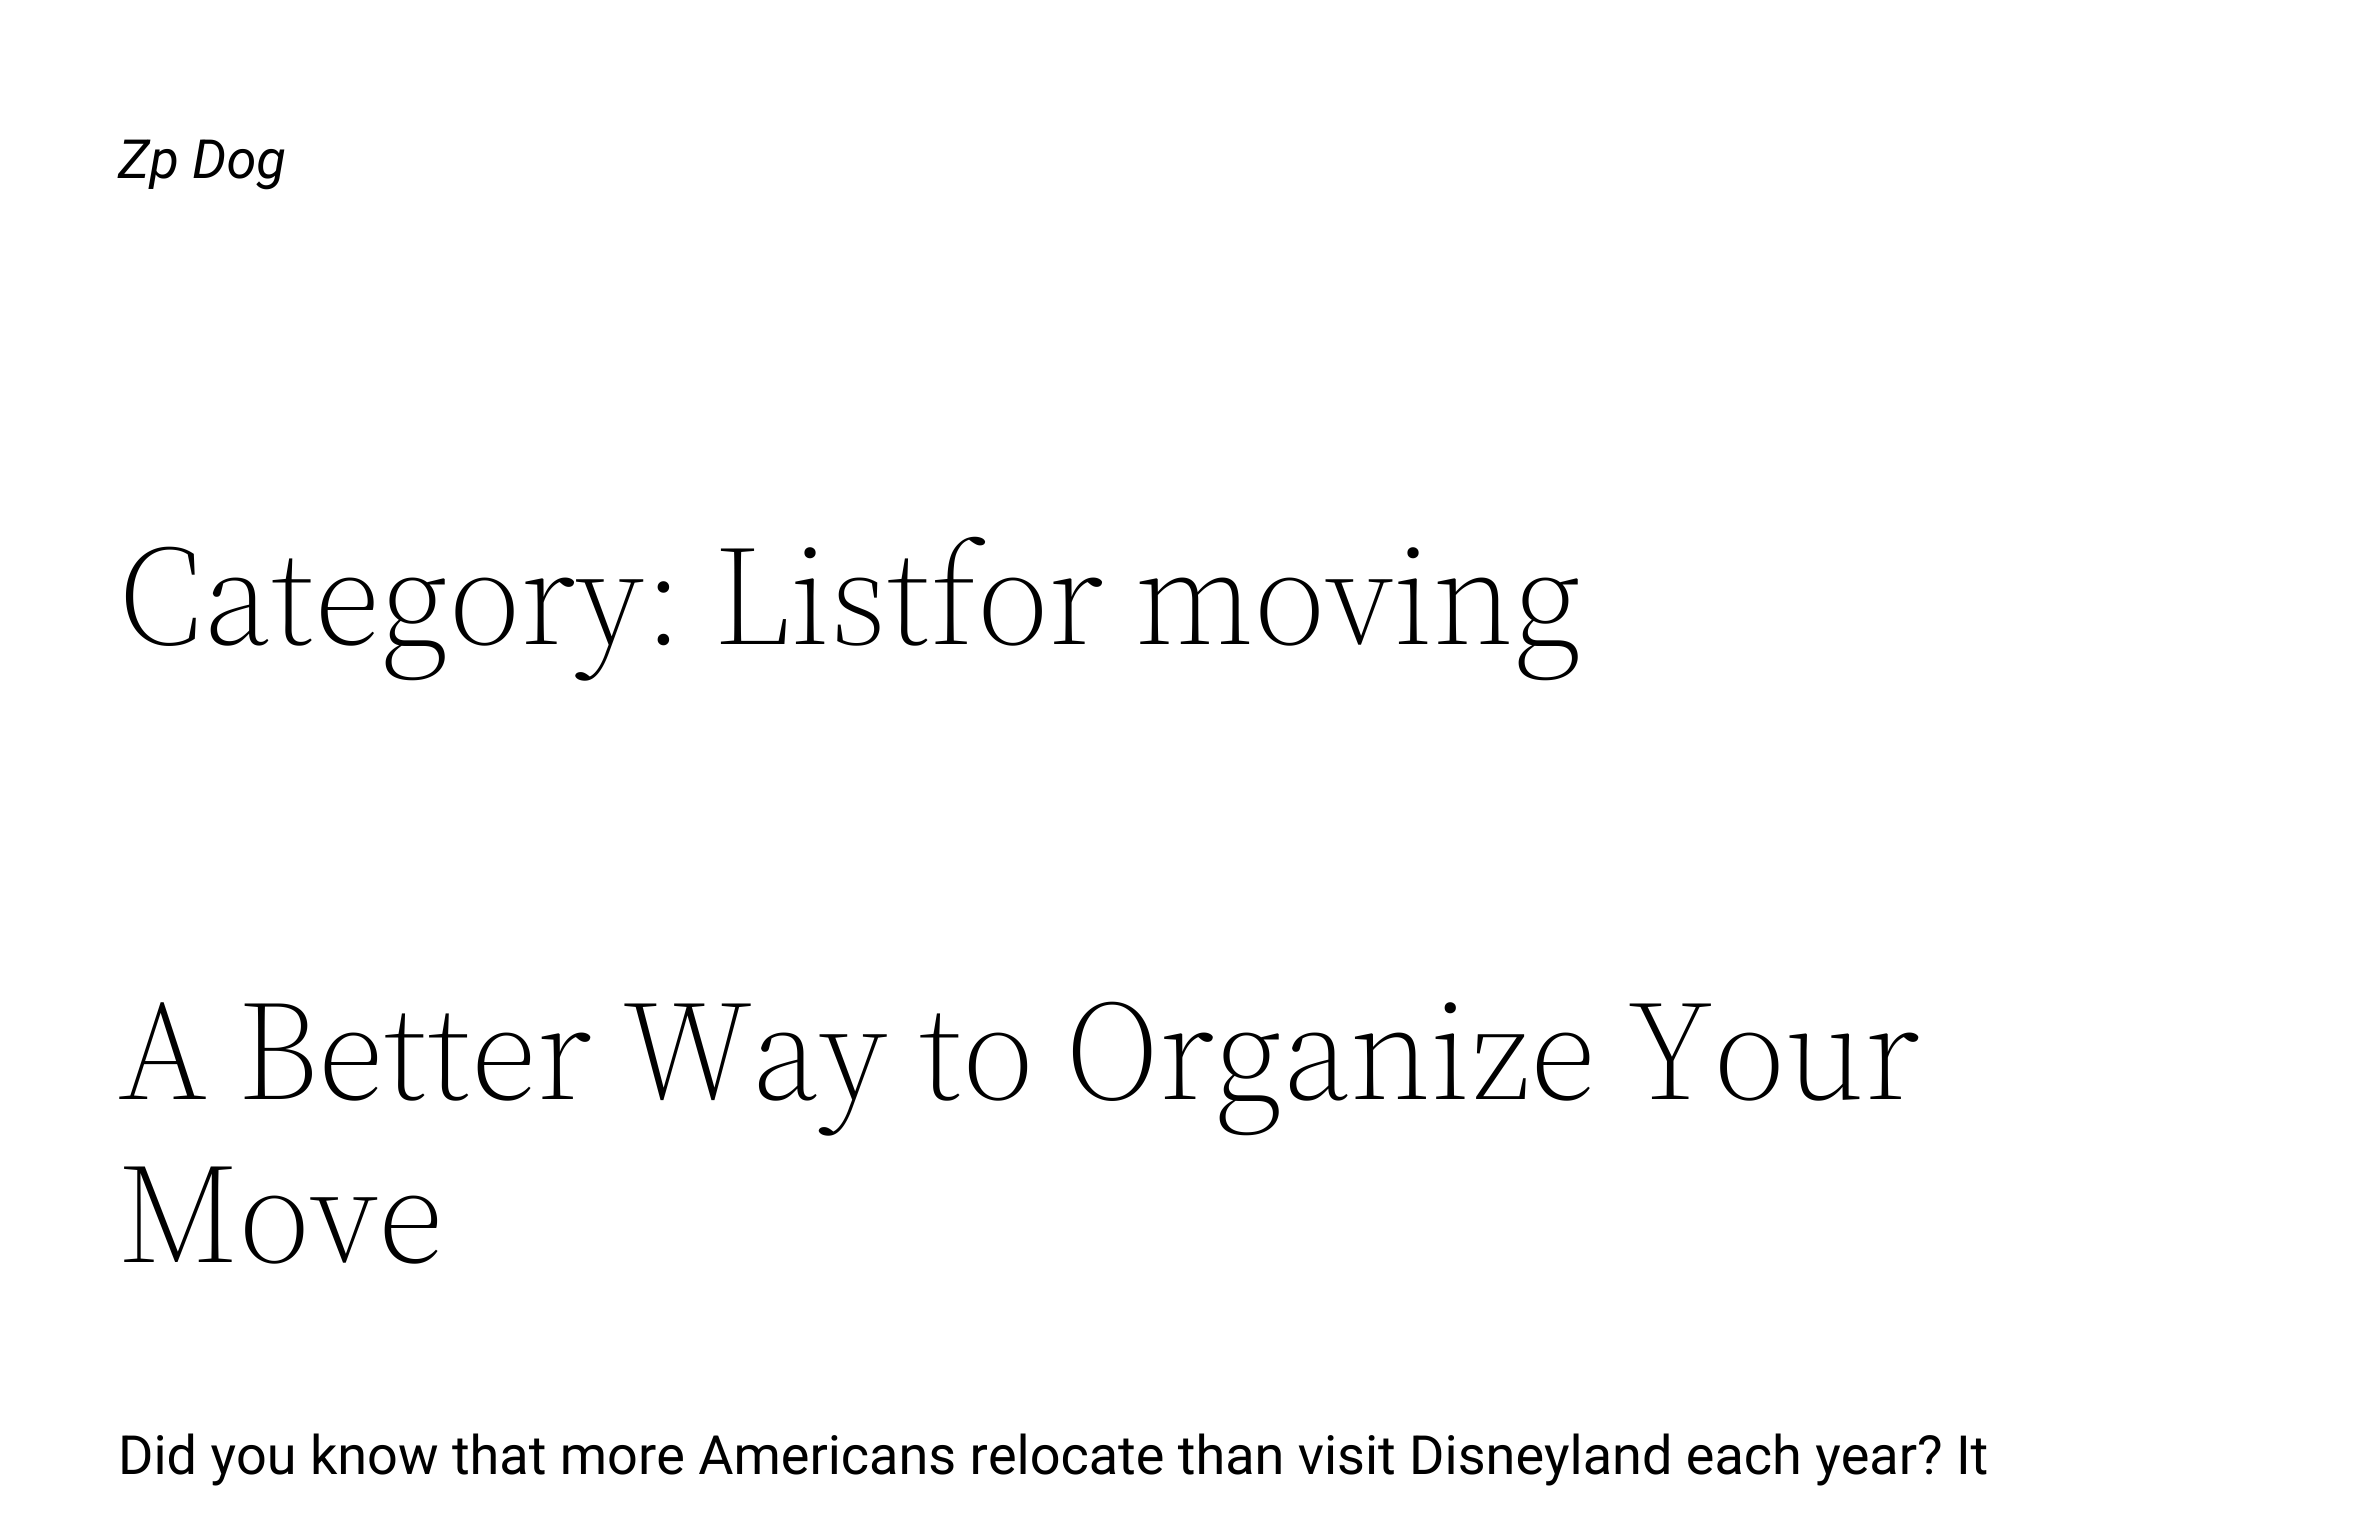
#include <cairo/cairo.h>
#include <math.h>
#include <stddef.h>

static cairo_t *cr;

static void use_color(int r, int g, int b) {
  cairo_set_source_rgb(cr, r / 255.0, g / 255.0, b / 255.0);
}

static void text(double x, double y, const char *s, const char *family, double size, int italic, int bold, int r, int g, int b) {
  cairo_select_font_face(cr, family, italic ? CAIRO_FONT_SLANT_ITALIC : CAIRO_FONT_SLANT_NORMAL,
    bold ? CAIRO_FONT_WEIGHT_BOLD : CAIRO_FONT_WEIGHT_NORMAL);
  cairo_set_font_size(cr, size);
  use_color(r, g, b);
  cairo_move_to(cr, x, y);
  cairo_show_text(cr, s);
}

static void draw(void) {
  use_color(255, 255, 255);
  cairo_paint(cr);
  text(118, 178, "Zp Dog", "Roboto", 54, 1, 0, 0, 0, 0);
  text(118, 644, "Category: Listfor moving", "Source Serif 4 Light", 141.7, 0, 0, 0, 0, 0);
  text(118, 1099, "A Better Way to Organize Your", "Source Serif 4 Light", 141.7, 0, 0, 0, 0, 0);
  text(118, 1262, "Move", "Source Serif 4 Light", 141.7, 0, 0, 0, 0, 0);
  text(118, 1474, "Did you know that more Americans relocate than visit Disneyland each year? It", "Roboto", 54, 0, 0, 0, 0, 0);
}

int main(void) {
  cairo_surface_t *surface = cairo_image_surface_create(CAIRO_FORMAT_RGB24, 2361, 1534);
  cr = cairo_create(surface);
  cairo_font_options_t *options = cairo_font_options_create();
  cairo_font_options_set_hint_metrics(options, CAIRO_HINT_METRICS_OFF);
  cairo_font_options_set_hint_style(options, CAIRO_HINT_STYLE_NONE);
  cairo_set_font_options(cr, options);
  cairo_set_miter_limit(cr, 4);
  draw();
  cairo_surface_write_to_png(surface, "out.png");
  cairo_font_options_destroy(options);
  cairo_destroy(cr);
  cairo_surface_destroy(surface);
  return 0;
}
